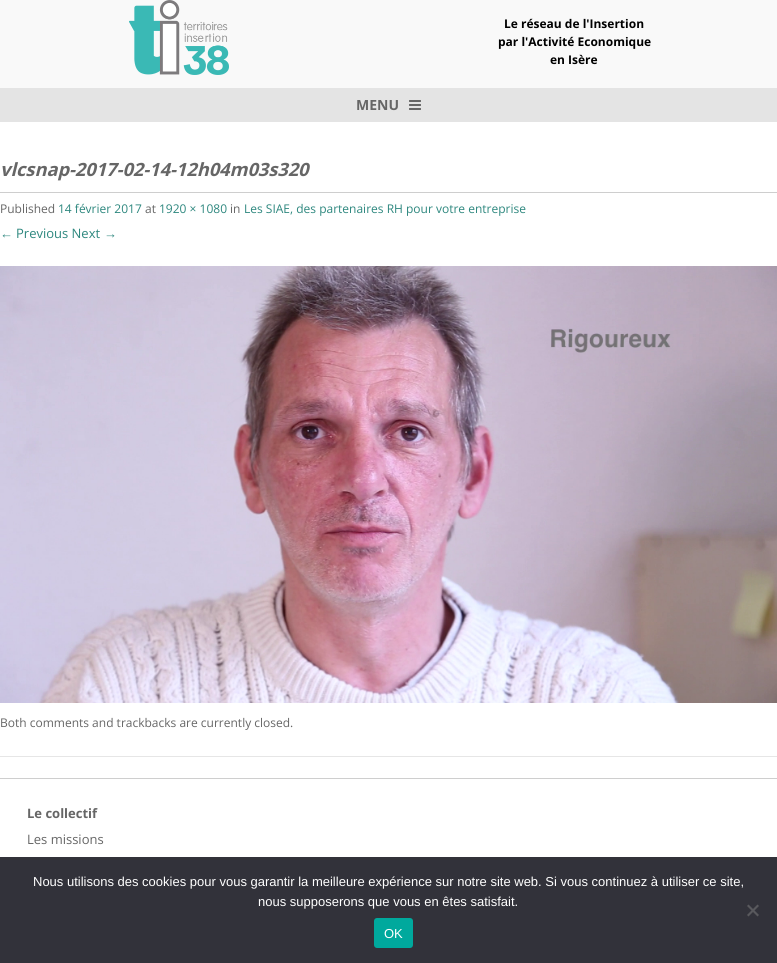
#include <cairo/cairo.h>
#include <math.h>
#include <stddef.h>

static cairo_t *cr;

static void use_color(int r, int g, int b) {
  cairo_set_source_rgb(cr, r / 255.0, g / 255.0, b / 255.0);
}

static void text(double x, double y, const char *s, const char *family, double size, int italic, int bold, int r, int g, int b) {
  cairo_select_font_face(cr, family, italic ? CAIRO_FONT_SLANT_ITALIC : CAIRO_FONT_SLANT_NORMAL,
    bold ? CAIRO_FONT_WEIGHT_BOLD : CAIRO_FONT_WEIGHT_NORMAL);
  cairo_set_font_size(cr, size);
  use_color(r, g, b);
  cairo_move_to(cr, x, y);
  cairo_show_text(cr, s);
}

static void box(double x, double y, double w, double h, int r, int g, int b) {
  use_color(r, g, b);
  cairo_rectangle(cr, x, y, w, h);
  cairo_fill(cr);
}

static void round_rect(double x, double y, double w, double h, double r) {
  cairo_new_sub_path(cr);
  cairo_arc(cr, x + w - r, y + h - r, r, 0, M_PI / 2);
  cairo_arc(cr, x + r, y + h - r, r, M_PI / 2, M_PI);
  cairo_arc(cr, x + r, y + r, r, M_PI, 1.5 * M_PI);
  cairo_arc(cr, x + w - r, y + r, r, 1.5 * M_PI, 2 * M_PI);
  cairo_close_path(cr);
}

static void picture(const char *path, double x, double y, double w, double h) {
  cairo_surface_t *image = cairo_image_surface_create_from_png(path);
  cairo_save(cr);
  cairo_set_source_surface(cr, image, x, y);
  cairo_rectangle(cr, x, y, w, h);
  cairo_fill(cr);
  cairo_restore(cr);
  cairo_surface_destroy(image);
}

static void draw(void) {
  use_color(255, 255, 255);
  cairo_paint(cr);
  box(0, 0, 777, 88, 249, 249, 249);
  picture("img_01.png", 129, 0, 100, 75);
  box(0, 88, 777, 34, 228, 228, 228);
  picture("img_02.png", 409, 100, 12, 10);
  box(0, 756, 777, 1, 230, 230, 230);
  box(0, 192, 777, 1, 206, 206, 206);
  picture("img_03.png", 0, 266, 777, 437);
  box(0, 778, 777, 1, 206, 206, 206);
  box(0, 857, 777, 106, 50, 50, 58);
  use_color(89, 89, 93);
  cairo_new_path(cr);
  cairo_move_to(cr, 757.5, 904.5);
  cairo_line_to(cr, 759, 906);
  cairo_line_to(cr, 748.5, 916.5);
  cairo_line_to(cr, 747, 915);
  cairo_close_path(cr);
  cairo_fill(cr);
  cairo_new_path(cr);
  cairo_move_to(cr, 747, 906);
  cairo_line_to(cr, 748.5, 904.5);
  cairo_line_to(cr, 759, 915);
  cairo_line_to(cr, 757.5, 916.5);
  cairo_close_path(cr);
  cairo_fill(cr);
  use_color(0, 169, 157);
  round_rect(374, 918, 39, 30, 3);
  cairo_fill(cr);
  text(504, 28, "Le réseau de l'Insertion", "Open Sans", 12, 0, 1, 0, 0, 0);
  text(498, 46, "par l'Activité Economique", "Open Sans", 12, 0, 1, 0, 0, 0);
  text(550, 64, "en Isère", "Open Sans", 12, 0, 1, 0, 0, 0);
  text(356, 110, "MENU", "Open Sans", 14, 0, 1, 102, 102, 102);
  text(0, 176, "vlcsnap-2017-02-14-12h04m03s320", "Open Sans", 18.25, 1, 1, 102, 102, 102);
  text(0, 213, "Published", "Open Sans", 12, 0, 0, 102, 102, 102);
  text(58, 213, "14 février 2017", "Open Sans", 12, 0, 0, 45, 135, 126);
  text(145, 213, "at", "Open Sans", 12, 0, 0, 102, 102, 102);
  text(159, 213, "1920 × 1080", "Open Sans", 12, 0, 0, 45, 135, 126);
  text(230, 213, "in", "Open Sans", 12, 0, 0, 102, 102, 102);
  text(244, 213, "Les SIAE, des partenaires RH pour votre entreprise", "Open Sans", 12, 0, 0, 45, 135, 126);
  text(0, 238, "←", "Liberation Sans", 13, 0, 0, 45, 135, 126);
  text(16, 238, "Previous Next", "Open Sans", 13, 0, 0, 45, 135, 126);
  text(104, 238, "→", "Liberation Sans", 13, 0, 0, 45, 135, 126);
  text(0, 727, "Both comments and trackbacks are currently closed.", "Open Sans", 12, 0, 0, 102, 102, 102);
  text(27, 818, "Le collectif", "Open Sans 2", 13, 0, 1, 102, 102, 102);
  text(27, 844, "Les missions", "Open Sans", 13, 0, 0, 102, 102, 102);
  text(33, 886, "Nous utilisons des cookies pour vous garantir la meilleure expérience sur notre site web. Si vous continuez à utiliser ce site,", "Liberation Sans", 13, 0, 0, 255, 255, 255);
  text(258, 906, "nous supposerons que vous en êtes satisfait.", "Liberation Sans", 13, 0, 0, 255, 255, 255);
  text(384, 938, "OK", "Liberation Sans", 13, 0, 0, 255, 255, 255);
}

int main(void) {
  cairo_surface_t *surface = cairo_image_surface_create(CAIRO_FORMAT_RGB24, 777, 963);
  cr = cairo_create(surface);
  cairo_font_options_t *options = cairo_font_options_create();
  cairo_font_options_set_hint_metrics(options, CAIRO_HINT_METRICS_OFF);
  cairo_font_options_set_hint_style(options, CAIRO_HINT_STYLE_NONE);
  cairo_set_font_options(cr, options);
  cairo_set_miter_limit(cr, 4);
  draw();
  cairo_surface_write_to_png(surface, "out.png");
  cairo_font_options_destroy(options);
  cairo_destroy(cr);
  cairo_surface_destroy(surface);
  return 0;
}
